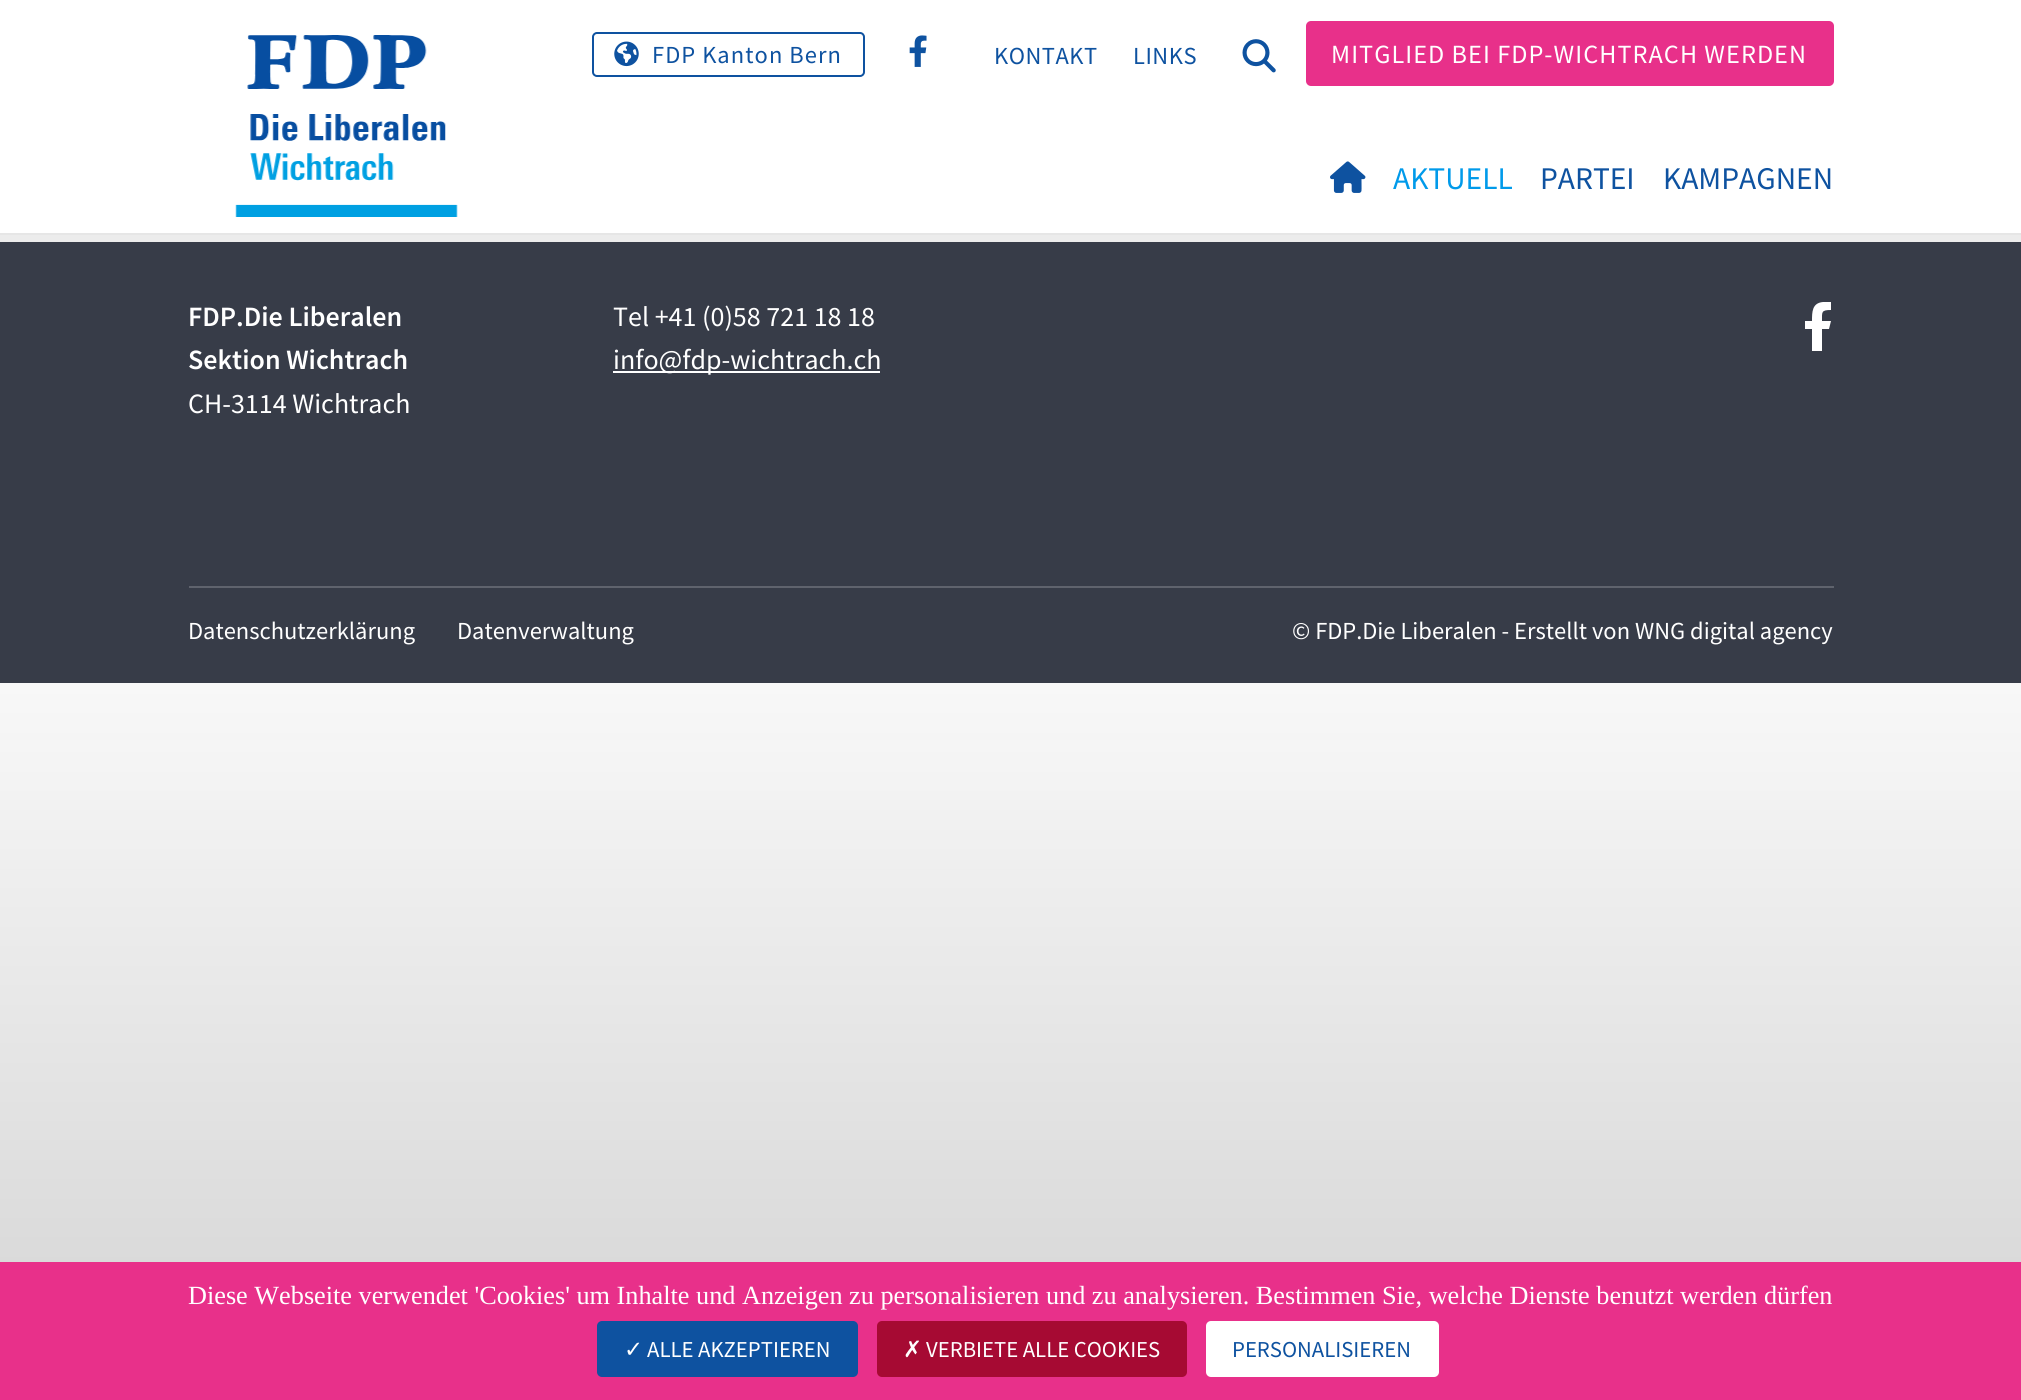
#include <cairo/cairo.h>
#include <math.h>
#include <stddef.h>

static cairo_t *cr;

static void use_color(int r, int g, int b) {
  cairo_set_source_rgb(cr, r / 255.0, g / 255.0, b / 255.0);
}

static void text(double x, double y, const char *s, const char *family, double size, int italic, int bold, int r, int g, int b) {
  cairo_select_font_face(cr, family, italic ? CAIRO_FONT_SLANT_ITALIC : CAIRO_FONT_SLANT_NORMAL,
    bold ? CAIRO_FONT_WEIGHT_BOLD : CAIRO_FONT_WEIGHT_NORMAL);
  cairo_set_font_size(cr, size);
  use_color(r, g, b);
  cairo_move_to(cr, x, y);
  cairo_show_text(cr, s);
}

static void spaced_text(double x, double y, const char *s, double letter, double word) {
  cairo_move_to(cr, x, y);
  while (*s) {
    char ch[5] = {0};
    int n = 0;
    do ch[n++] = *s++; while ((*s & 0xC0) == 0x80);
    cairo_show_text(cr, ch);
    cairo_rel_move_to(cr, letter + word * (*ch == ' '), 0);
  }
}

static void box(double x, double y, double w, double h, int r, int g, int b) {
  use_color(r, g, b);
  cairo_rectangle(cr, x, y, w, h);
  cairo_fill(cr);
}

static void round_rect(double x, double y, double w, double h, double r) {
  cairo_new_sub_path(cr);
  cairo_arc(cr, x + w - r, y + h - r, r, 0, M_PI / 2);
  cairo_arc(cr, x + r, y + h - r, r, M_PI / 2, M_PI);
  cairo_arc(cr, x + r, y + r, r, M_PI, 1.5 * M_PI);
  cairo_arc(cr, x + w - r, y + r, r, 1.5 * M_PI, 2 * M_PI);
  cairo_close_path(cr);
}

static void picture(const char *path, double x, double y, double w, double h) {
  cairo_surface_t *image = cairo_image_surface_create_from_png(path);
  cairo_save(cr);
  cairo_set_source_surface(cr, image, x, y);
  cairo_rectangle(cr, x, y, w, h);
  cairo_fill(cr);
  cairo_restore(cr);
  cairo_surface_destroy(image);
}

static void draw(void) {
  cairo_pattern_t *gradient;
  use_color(255, 255, 255);
  cairo_paint(cr);
  gradient = cairo_pattern_create_linear(1011, 0, 1011, 683);
  cairo_pattern_add_color_stop_rgba(gradient, 0, 0.973, 0.973, 0.973, 1);
  cairo_pattern_add_color_stop_rgba(gradient, 1, 0.835, 0.835, 0.835, 1);
  cairo_set_source(cr, gradient);
  cairo_pattern_destroy(gradient);
  cairo_rectangle(cr, 0, 235, 2021, 7);
  cairo_fill(cr);
  gradient = cairo_pattern_create_linear(1011, 682, 1011, 1365);
  cairo_pattern_add_color_stop_rgba(gradient, 0, 0.973, 0.973, 0.973, 1);
  cairo_pattern_add_color_stop_rgba(gradient, 1, 0.835, 0.835, 0.835, 1);
  cairo_set_source(cr, gradient);
  cairo_pattern_destroy(gradient);
  cairo_rectangle(cr, 0, 683, 2021, 579);
  cairo_fill(cr);
  box(0, 233, 2021, 2, 230, 230, 230);
  picture("img_01.png", 235, 35, 223, 182);
  round_rect(593, 33, 271, 43, 4);
  use_color(14, 82, 160);
  cairo_stroke(cr);
  picture("img_02.png", 614, 41, 25, 26);
  picture("img_03.png", 909, 35, 18, 32);
  picture("img_04.png", 1242, 39, 34, 34);
  use_color(232, 48, 138);
  round_rect(1306, 21, 528, 65, 5);
  cairo_fill(cr);
  picture("img_05.png", 1330, 161, 36, 32);
  box(0, 242, 2021, 441, 55, 60, 72);
  box(613, 371, 267, 2, 255, 255, 255);
  cairo_new_path(cr);
  cairo_move_to(cr, 1829, 329);
  cairo_line_to(cr, 1831, 321);
  cairo_line_to(cr, 1822, 321);
  cairo_curve_to(cr, 1822, 312, 1821, 310, 1831, 310);
  cairo_line_to(cr, 1831, 302);
  cairo_line_to(cr, 1823, 302);
  cairo_curve_to(cr, 1812, 303, 1812, 312, 1812, 321);
  cairo_line_to(cr, 1805, 321);
  cairo_line_to(cr, 1805, 329);
  cairo_line_to(cr, 1812, 329);
  cairo_line_to(cr, 1812, 351);
  cairo_line_to(cr, 1822, 351);
  cairo_line_to(cr, 1822, 329);
  cairo_close_path(cr);
  cairo_fill(cr);
  box(189, 586, 1645, 2, 95, 99, 109);
  box(0, 1262, 2021, 138, 232, 48, 138);
  use_color(14, 82, 160);
  round_rect(597, 1321, 261, 56, 5);
  cairo_fill(cr);
  use_color(166, 10, 51);
  round_rect(877, 1321, 310, 56, 5);
  cairo_fill(cr);
  use_color(255, 255, 255);
  round_rect(1206, 1321, 233, 56, 5);
  cairo_fill(cr);
  cairo_select_font_face(cr, "Source Sans Pro", CAIRO_FONT_SLANT_NORMAL, CAIRO_FONT_WEIGHT_NORMAL);
  cairo_set_font_size(cr, 24.5);
  use_color(14, 82, 160);
  spaced_text(652, 63, "FDP Kanton Bern", 1.05, 0);
  spaced_text(994, 64, "KONTAKT", 0.5, 0);
  spaced_text(1133, 64, "LINKS", 0.5, 0);
  cairo_set_font_size(cr, 26.25);
  use_color(255, 255, 255);
  spaced_text(1331, 63, "MITGLIED BEI FDP-WICHTRACH WERDEN", 1.05, 0);
  text(1393, 189, "AKTUELL", "Source Sans Pro", 31.5, 0, 0, 0, 154, 234);
  text(1540, 189, "PARTEI", "Source Sans Pro", 31.5, 0, 0, 14, 82, 160);
  text(1663, 189, "KAMPAGNEN", "Source Sans Pro", 31.5, 0, 0, 14, 82, 160);
  text(188, 326, "FDP.Die Liberalen", "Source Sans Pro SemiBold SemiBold", 28, 0, 0, 255, 255, 255);
  text(188, 369, "Sektion Wichtrach", "Source Sans Pro SemiBold SemiBold", 28, 0, 0, 255, 255, 255);
  text(188, 413, "CH-3114 Wichtrach", "Source Sans Pro", 28, 0, 0, 255, 255, 255);
  text(613, 326, "Tel +41 (0)58 721 18 18", "Source Sans Pro", 28, 0, 0, 255, 255, 255);
  text(613, 369, "info@fdp-wichtrach.ch", "Source Sans Pro", 28, 0, 0, 255, 255, 255);
  text(188, 639, "Datenschutzerklärung", "Source Sans Pro", 24.5, 0, 0, 255, 255, 255);
  text(457, 639, "Datenverwaltung", "Source Sans Pro", 24.5, 0, 0, 255, 255, 255);
  text(1292, 639, "© FDP.Die Liberalen - Erstellt von WNG digital agency", "Source Sans Pro", 24.5, 0, 0, 255, 255, 255);
  text(188, 1304, "Diese Webseite verwendet 'Cookies' um Inhalte und Anzeigen zu personalisieren und zu analysieren. Bestimmen Sie, welche Dienste benutzt werden dürfen", "Liberation Serif", 26.25, 0, 0, 255, 255, 255);
  text(624, 1357, "✓", "DejaVu Sans", 22.75, 0, 0, 255, 255, 255);
  text(647, 1357, "ALLE AKZEPTIEREN", "Source Sans Pro", 22.75, 0, 0, 255, 255, 255);
  text(903, 1357, "✗", "DejaVu Sans", 22.75, 0, 0, 255, 255, 255);
  text(926, 1357, "VERBIETE ALLE COOKIES", "Source Sans Pro", 22.75, 0, 0, 255, 255, 255);
  text(1232, 1357, "PERSONALISIEREN", "Source Sans Pro", 22.75, 0, 0, 14, 82, 160);
}

int main(void) {
  cairo_surface_t *surface = cairo_image_surface_create(CAIRO_FORMAT_RGB24, 2021, 1400);
  cr = cairo_create(surface);
  cairo_font_options_t *options = cairo_font_options_create();
  cairo_font_options_set_hint_metrics(options, CAIRO_HINT_METRICS_OFF);
  cairo_font_options_set_hint_style(options, CAIRO_HINT_STYLE_NONE);
  cairo_set_font_options(cr, options);
  cairo_set_miter_limit(cr, 4);
  draw();
  cairo_surface_write_to_png(surface, "out.png");
  cairo_font_options_destroy(options);
  cairo_destroy(cr);
  cairo_surface_destroy(surface);
  return 0;
}
